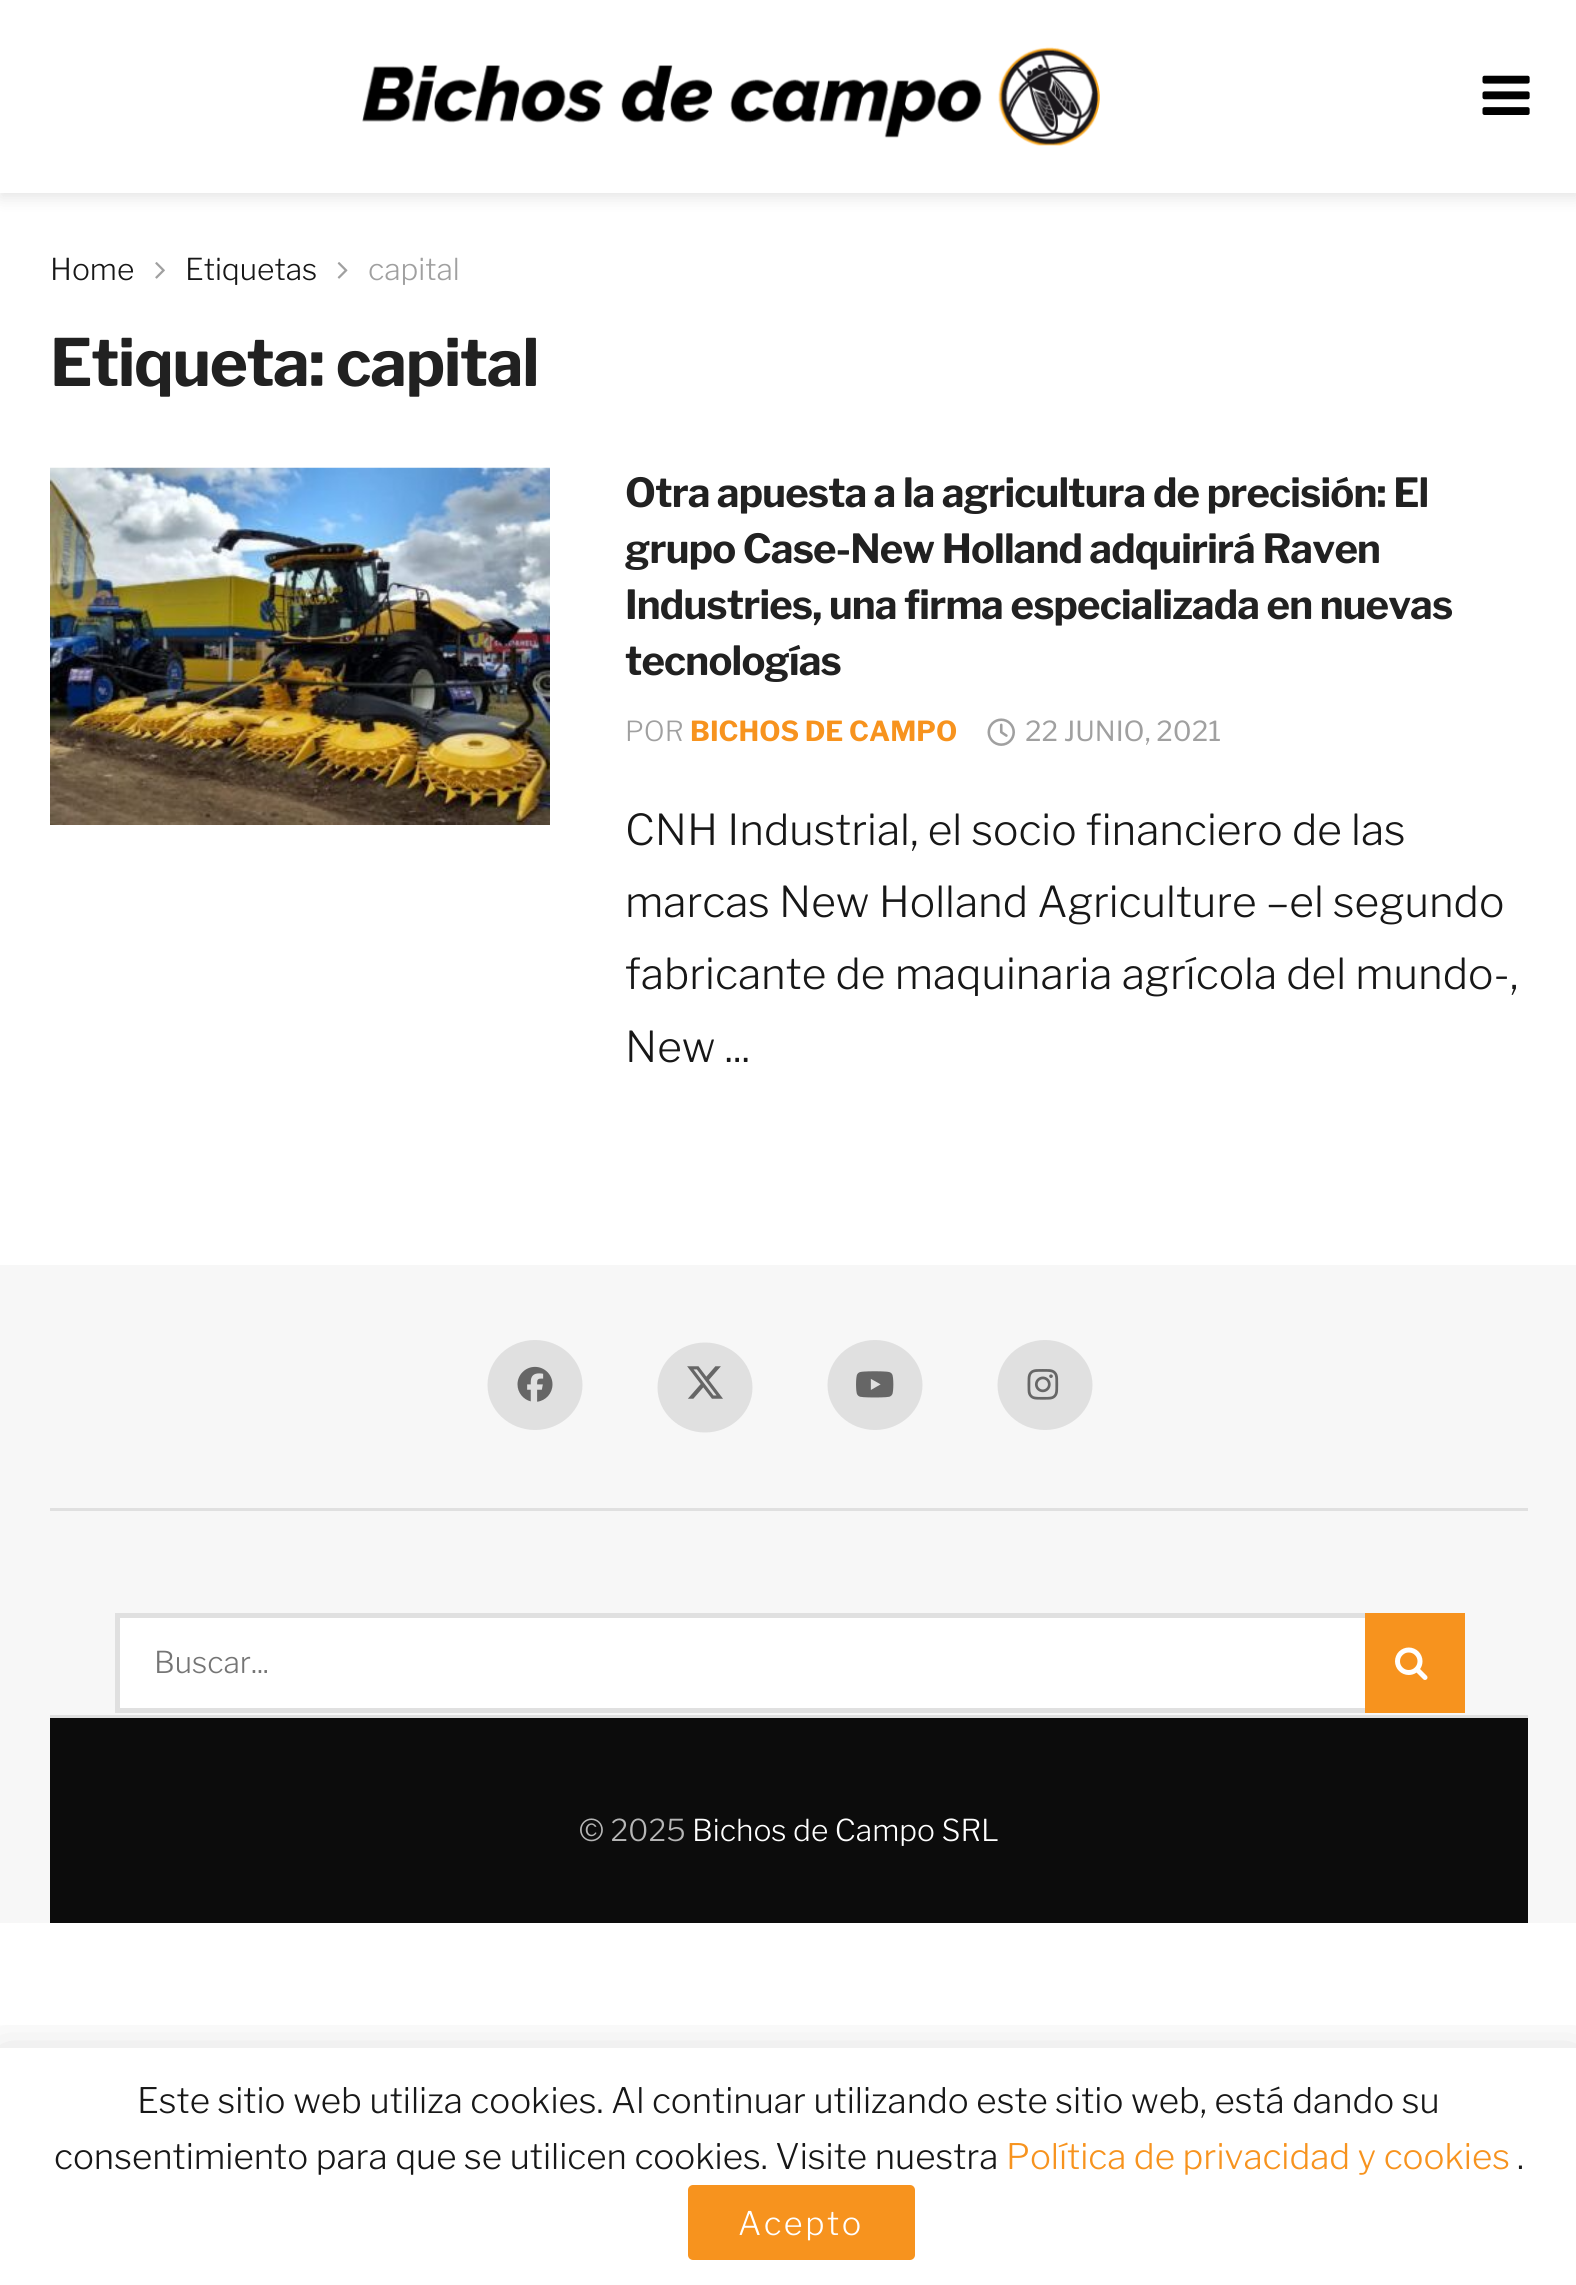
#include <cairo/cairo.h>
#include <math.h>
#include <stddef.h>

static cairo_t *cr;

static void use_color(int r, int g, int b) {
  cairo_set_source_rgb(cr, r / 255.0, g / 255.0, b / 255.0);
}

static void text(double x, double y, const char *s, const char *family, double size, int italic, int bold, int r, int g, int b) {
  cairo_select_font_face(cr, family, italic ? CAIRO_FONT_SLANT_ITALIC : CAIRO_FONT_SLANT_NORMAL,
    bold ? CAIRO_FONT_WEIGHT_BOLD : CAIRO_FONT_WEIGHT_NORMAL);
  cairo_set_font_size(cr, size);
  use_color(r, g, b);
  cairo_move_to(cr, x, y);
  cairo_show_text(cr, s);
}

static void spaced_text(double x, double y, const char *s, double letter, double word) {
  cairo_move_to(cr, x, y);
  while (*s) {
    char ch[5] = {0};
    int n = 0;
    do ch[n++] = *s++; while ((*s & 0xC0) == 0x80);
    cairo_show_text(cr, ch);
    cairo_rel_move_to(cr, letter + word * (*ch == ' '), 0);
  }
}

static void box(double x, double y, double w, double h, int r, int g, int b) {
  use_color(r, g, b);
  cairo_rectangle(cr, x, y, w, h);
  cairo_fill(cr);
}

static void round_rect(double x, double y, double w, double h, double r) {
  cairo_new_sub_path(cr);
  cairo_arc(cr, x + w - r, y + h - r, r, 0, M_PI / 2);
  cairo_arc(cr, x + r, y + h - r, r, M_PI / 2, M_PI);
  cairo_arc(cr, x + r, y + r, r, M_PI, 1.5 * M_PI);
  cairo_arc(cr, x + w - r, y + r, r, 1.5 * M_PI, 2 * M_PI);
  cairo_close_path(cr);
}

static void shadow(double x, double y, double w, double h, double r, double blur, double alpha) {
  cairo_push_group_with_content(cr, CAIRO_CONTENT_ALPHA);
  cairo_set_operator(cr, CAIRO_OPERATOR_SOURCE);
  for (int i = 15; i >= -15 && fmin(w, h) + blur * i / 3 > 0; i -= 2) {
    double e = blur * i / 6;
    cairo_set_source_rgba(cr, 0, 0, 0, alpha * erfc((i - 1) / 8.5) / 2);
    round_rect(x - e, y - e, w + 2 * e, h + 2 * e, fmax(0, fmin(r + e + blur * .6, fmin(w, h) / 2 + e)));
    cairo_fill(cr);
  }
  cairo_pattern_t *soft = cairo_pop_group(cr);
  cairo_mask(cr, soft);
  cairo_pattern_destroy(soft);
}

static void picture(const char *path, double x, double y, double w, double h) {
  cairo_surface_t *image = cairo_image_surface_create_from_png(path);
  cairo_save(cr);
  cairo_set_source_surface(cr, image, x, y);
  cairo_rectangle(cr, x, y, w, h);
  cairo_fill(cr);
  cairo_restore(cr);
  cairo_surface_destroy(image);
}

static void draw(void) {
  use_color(255, 255, 255);
  cairo_paint(cr);
  use_color(0, 0, 0);
  shadow(0, 5, 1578, 193, 0, 7.5, 0.1);
  box(0, 0, 1576, 193, 255, 255, 255);
  picture("img_01.png", 362, 47, 738, 99);
  picture("img_02.png", 1482, 75, 48, 40);
  picture("img_03.png", 155, 262, 10, 17);
  picture("img_04.png", 337, 262, 11, 17);
  picture("img_05.png", 50, 467, 500, 358);
  picture("img_06.png", 987, 718, 28, 28);
  box(0, 1265, 1576, 658, 247, 247, 247);
  box(50, 1508, 1478, 3, 224, 224, 224);
  cairo_new_path(cr);
  cairo_move_to(cr, 535, 1340);
  cairo_curve_to(cr, 561, 1340, 582.5, 1360, 582.5, 1385);
  cairo_curve_to(cr, 582.5, 1410, 561, 1430, 535, 1430);
  cairo_curve_to(cr, 509, 1430, 487.5, 1410, 487.5, 1385);
  cairo_curve_to(cr, 487.5, 1360, 509, 1340, 535, 1340);
  cairo_close_path(cr);
  cairo_fill(cr);
  picture("img_07.png", 517, 1366, 36, 36);
  cairo_new_path(cr);
  cairo_move_to(cr, 705, 1342.5);
  cairo_curve_to(cr, 731, 1342.5, 752.5, 1362.5, 752.5, 1387.5);
  cairo_curve_to(cr, 752.5, 1412.5, 731, 1432.5, 705, 1432.5);
  cairo_curve_to(cr, 679, 1432.5, 657.5, 1412.5, 657.5, 1387.5);
  cairo_curve_to(cr, 657.5, 1362.5, 679, 1342.5, 705, 1342.5);
  cairo_close_path(cr);
  cairo_fill(cr);
  picture("img_08.png", 687, 1366, 36, 33);
  cairo_new_path(cr);
  cairo_move_to(cr, 875, 1340);
  cairo_curve_to(cr, 901, 1340, 922.5, 1360, 922.5, 1385);
  cairo_curve_to(cr, 922.5, 1410, 901, 1430, 875, 1430);
  cairo_curve_to(cr, 849, 1430, 827.5, 1410, 827.5, 1385);
  cairo_curve_to(cr, 827.5, 1360, 849, 1340, 875, 1340);
  cairo_close_path(cr);
  cairo_fill(cr);
  picture("img_09.png", 856, 1371, 38, 27);
  cairo_new_path(cr);
  cairo_move_to(cr, 1045, 1340);
  cairo_curve_to(cr, 1071, 1340, 1092.5, 1360, 1092.5, 1385);
  cairo_curve_to(cr, 1092.5, 1410, 1071, 1430, 1045, 1430);
  cairo_curve_to(cr, 1019, 1430, 997.5, 1410, 997.5, 1385);
  cairo_curve_to(cr, 997.5, 1360, 1019, 1340, 1045, 1340);
  cairo_close_path(cr);
  cairo_fill(cr);
  picture("img_10.png", 1027, 1369, 32, 31);
  box(120, 1618, 1245, 90, 255, 255, 255);
  cairo_rectangle(cr, 117.5, 1615.5, 1345, 95);
  use_color(224, 224, 224);
  cairo_set_line_width(cr, 5);
  cairo_stroke(cr);
  box(1365, 1613, 100, 100, 247, 147, 30);
  picture("img_11.png", 1395, 1647, 33, 33);
  box(50, 1718, 1478, 205, 12, 12, 12);
  box(50, 1715, 1478, 3, 224, 224, 224);
  cairo_save(cr);
  cairo_rectangle(cr, 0, 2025, 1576, 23);
  cairo_clip(cr);
  use_color(0, 0, 0);
  shadow(0, 2053, 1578, 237, 0, 25, 0.15);
  cairo_restore(cr);
  use_color(247, 147, 30);
  round_rect(688, 2185, 227, 75, 5);
  cairo_fill(cr);
  text(50, 280, "Home", "Libre Franklin Thin", 30, 0, 0, 23, 23, 23);
  text(185, 280, "Etiquetas", "Libre Franklin Thin", 30, 0, 0, 23, 23, 23);
  text(368, 280, "capital", "Libre Franklin Thin", 30, 0, 0, 160, 160, 160);
  cairo_select_font_face(cr, "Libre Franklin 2 Thin", CAIRO_FONT_SLANT_NORMAL, CAIRO_FONT_WEIGHT_NORMAL);
  cairo_set_font_size(cr, 65);
  use_color(33, 33, 33);
  spaced_text(50, 386, "Etiqueta: capital", -1.25, 0);
  cairo_set_font_size(cr, 40);
  spaced_text(625, 507, "Otra apuesta a la agricultura de precisión: El", -0.8, 0);
  spaced_text(625, 563, "grupo Case-New Holland adquirirá Raven", -0.8, 0);
  spaced_text(625, 619, "Industries, una firma especializada en nuevas", -0.8, 0);
  spaced_text(625, 675, "tecnologías", -0.8, 0);
  text(625, 741, "POR", "Libre Franklin Thin", 27.5, 0, 0, 160, 160, 160);
  text(690, 741, "BICHOS DE CAMPO", "Libre Franklin 2 Thin", 27.5, 0, 0, 247, 147, 30);
  text(1025, 741, "22 JUNIO, 2021", "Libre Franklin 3 Thin", 27.5, 0, 0, 160, 160, 160);
  text(625, 845, "CNH Industrial, el socio financiero de las", "Libre Franklin Thin", 42.5, 0, 0, 23, 23, 23);
  text(625, 917, "marcas New Holland Agriculture –el segundo", "Libre Franklin Thin", 42.5, 0, 0, 23, 23, 23);
  text(625, 989, "fabricante de maquinaria agrícola del mundo-,", "Libre Franklin Thin", 42.5, 0, 0, 23, 23, 23);
  text(625, 1062, "New ...", "Libre Franklin Thin", 42.5, 0, 0, 23, 23, 23);
  text(154, 1673, "Buscar...", "Libre Franklin Thin", 30, 0, 0, 117, 117, 117);
  text(579, 1841, "© 2025", "Libre Franklin Thin", 30, 0, 0, 182, 182, 182);
  text(692, 1841, "Bichos de Campo SRL", "Libre Franklin Thin", 30, 0, 0, 255, 255, 255);
  text(137, 2113, "Este sitio web utiliza cookies. Al continuar utilizando este sitio web, está dando su", "Libre Franklin Thin", 35, 0, 0, 23, 23, 23);
  text(54, 2169, "consentimiento para que se utilicen cookies. Visite nuestra", "Libre Franklin Thin", 35, 0, 0, 23, 23, 23);
  text(1006, 2169, "Política de privacidad y cookies", "Libre Franklin Thin", 35, 0, 0, 247, 147, 30);
  text(1517, 2169, ".", "Libre Franklin Thin", 35, 0, 0, 23, 23, 23);
  cairo_set_font_size(cr, 32.5);
  use_color(255, 255, 255);
  spaced_text(738, 2235, "Acepto", 2.5, 0);
}

int main(void) {
  cairo_surface_t *surface = cairo_image_surface_create(CAIRO_FORMAT_RGB24, 1576, 2285);
  cr = cairo_create(surface);
  cairo_font_options_t *options = cairo_font_options_create();
  cairo_font_options_set_hint_metrics(options, CAIRO_HINT_METRICS_OFF);
  cairo_font_options_set_hint_style(options, CAIRO_HINT_STYLE_NONE);
  cairo_set_font_options(cr, options);
  cairo_set_miter_limit(cr, 4);
  draw();
  cairo_surface_write_to_png(surface, "out.png");
  cairo_font_options_destroy(options);
  cairo_destroy(cr);
  cairo_surface_destroy(surface);
  return 0;
}
